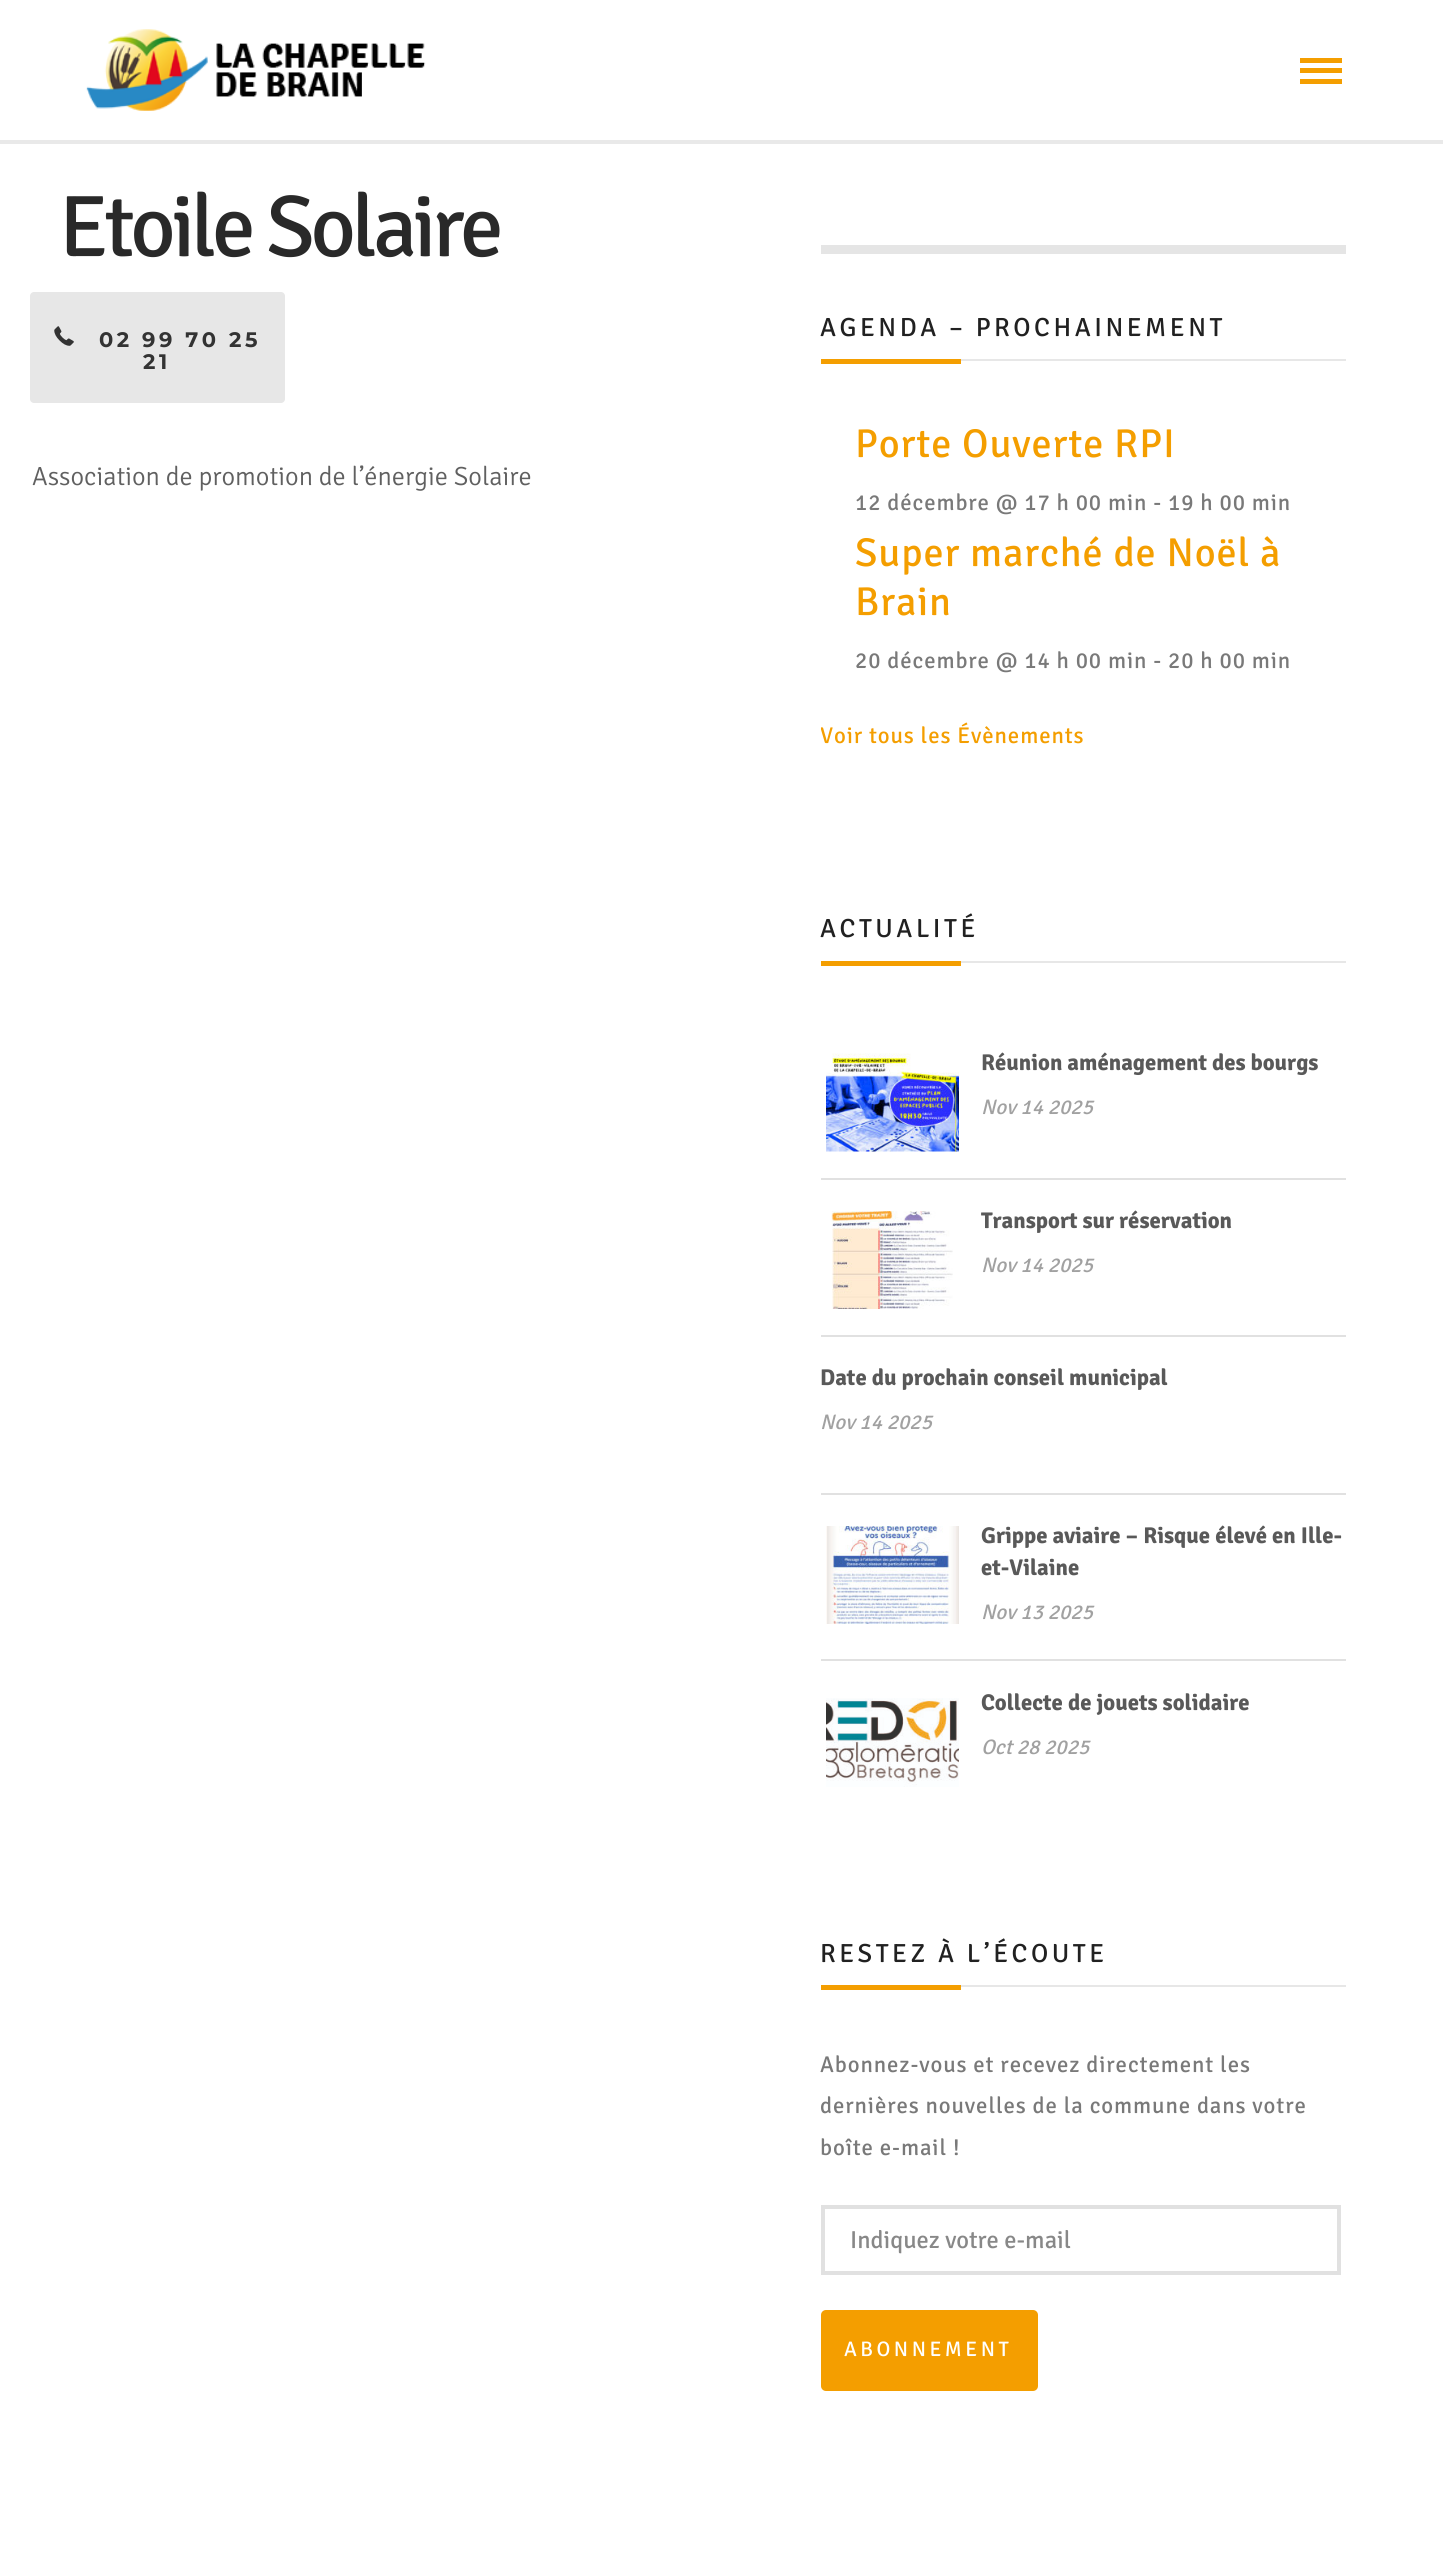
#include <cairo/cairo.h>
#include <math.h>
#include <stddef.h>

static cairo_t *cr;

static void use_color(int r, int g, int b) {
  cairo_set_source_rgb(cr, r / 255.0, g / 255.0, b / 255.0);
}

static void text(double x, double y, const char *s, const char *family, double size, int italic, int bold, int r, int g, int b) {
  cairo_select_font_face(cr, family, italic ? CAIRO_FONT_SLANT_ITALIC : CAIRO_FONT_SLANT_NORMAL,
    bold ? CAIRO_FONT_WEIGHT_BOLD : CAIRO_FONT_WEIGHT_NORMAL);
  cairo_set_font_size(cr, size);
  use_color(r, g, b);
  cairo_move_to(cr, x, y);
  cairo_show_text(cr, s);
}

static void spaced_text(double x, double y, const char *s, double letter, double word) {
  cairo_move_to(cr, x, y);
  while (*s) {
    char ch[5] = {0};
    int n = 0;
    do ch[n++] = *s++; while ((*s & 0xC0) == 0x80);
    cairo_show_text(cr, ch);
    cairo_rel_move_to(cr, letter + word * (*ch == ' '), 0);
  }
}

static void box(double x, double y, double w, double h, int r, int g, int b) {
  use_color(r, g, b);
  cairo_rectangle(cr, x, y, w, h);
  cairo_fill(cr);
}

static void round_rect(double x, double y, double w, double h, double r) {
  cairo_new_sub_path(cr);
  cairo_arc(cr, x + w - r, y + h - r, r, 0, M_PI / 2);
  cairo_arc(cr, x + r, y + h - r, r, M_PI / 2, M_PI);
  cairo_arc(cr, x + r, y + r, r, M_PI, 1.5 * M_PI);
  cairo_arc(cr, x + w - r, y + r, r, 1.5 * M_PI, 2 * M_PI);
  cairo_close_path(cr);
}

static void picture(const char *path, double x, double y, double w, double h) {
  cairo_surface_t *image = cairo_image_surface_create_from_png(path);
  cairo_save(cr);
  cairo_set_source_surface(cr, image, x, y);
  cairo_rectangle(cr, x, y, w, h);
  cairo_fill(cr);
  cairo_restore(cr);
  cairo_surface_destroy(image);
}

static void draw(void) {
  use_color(255, 255, 255);
  cairo_paint(cr);
  box(0, 140, 1443, 4, 233, 233, 233);
  picture("img_01.png", 86, 29, 340, 82);
  box(1300, 58, 42, 5, 244, 158, 0);
  box(1300, 68, 42, 5, 244, 158, 0);
  box(1300, 79, 42, 5, 244, 158, 0);
  use_color(231, 231, 231);
  round_rect(30, 292, 255, 111, 4);
  cairo_fill(cr);
  picture("img_02.png", 54, 326, 20, 20);
  box(821, 245, 525, 9, 229, 229, 229);
  box(821, 359, 140, 5, 244, 158, 0);
  box(961, 359, 385, 2, 231, 231, 231);
  box(821, 961, 140, 5, 244, 158, 0);
  box(961, 961, 385, 2, 231, 231, 231);
  box(821, 1178, 525, 2, 225, 225, 225);
  picture("img_03.png", 826, 1053, 133, 99);
  box(821, 1335, 525, 2, 225, 225, 225);
  picture("img_04.png", 831, 1211, 122, 98);
  box(821, 1493, 525, 2, 225, 225, 225);
  box(821, 1659, 525, 2, 225, 225, 225);
  picture("img_05.png", 826, 1526, 133, 98);
  picture("img_06.png", 826, 1698, 133, 89);
  box(821, 1985, 140, 5, 244, 158, 0);
  box(961, 1985, 385, 2, 231, 231, 231);
  cairo_rectangle(cr, 823, 2207, 516, 66);
  use_color(225, 225, 225);
  cairo_set_line_width(cr, 4);
  cairo_stroke(cr);
  use_color(244, 158, 0);
  round_rect(821, 2310, 217, 81, 5);
  cairo_fill(cr);
  cairo_select_font_face(cr, "Signika", CAIRO_FONT_SLANT_NORMAL, CAIRO_FONT_WEIGHT_NORMAL);
  cairo_set_font_size(cr, 87.5);
  use_color(41, 41, 41);
  spaced_text(59, 256, "Etoile Solaire", -4.4, 0);
  cairo_select_font_face(cr, "Montserrat", CAIRO_FONT_SLANT_NORMAL, CAIRO_FONT_WEIGHT_BOLD);
  cairo_set_font_size(cr, 21);
  use_color(51, 51, 51);
  spaced_text(99, 347, "02 99 70 25", 3.5, 0);
  spaced_text(143, 369, "21", 3.5, 0);
  text(32, 485, "Association de promotion de l’énergie Solaire", "Signika Light", 26.25, 0, 0, 96, 96, 96);
  cairo_select_font_face(cr, "Signika", CAIRO_FONT_SLANT_NORMAL, CAIRO_FONT_WEIGHT_NORMAL);
  use_color(33, 33, 33);
  spaced_text(820, 336, "AGENDA – PROCHAINEMENT", 3.5, 0);
  cairo_set_font_size(cr, 40.25);
  use_color(244, 158, 0);
  spaced_text(855, 457, "Porte Ouverte RPI", 0.9, 0);
  cairo_set_font_size(cr, 22.75);
  use_color(121, 121, 121);
  spaced_text(855, 510, "12 décembre @ 17 h 00 min - 19 h 00 min", 0.9, 0);
  cairo_set_font_size(cr, 40.25);
  use_color(244, 158, 0);
  spaced_text(855, 566, "Super marché de Noël à", 0.9, 0);
  spaced_text(855, 615, "Brain", 0.9, 0);
  cairo_set_font_size(cr, 22.75);
  use_color(121, 121, 121);
  spaced_text(855, 668, "20 décembre @ 14 h 00 min - 20 h 00 min", 0.9, 0);
  cairo_save(cr);
  cairo_rectangle(cr, 821, 254, 525, 541);
  cairo_clip(cr);
  use_color(244, 158, 0);
  spaced_text(820, 743, "Voir tous les Évènements", 0.9, 0);
  cairo_restore(cr);
  cairo_set_font_size(cr, 26.25);
  use_color(33, 33, 33);
  spaced_text(820, 937, "ACTUALITÉ", 3.5, 0);
  text(981, 1070, "Réunion aménagement des bourgs", "Signika", 22.75, 0, 1, 89, 89, 89);
  text(981, 1114, "Nov 14 2025", "Signika", 21, 1, 0, 161, 161, 161);
  text(981, 1228, "Transport sur réservation", "Signika", 22.75, 0, 1, 89, 89, 89);
  text(981, 1272, "Nov 14 2025", "Signika", 21, 1, 0, 161, 161, 161);
  text(820, 1385, "Date du prochain conseil municipal", "Signika", 22.75, 0, 1, 89, 89, 89);
  text(820, 1429, "Nov 14 2025", "Signika", 21, 1, 0, 161, 161, 161);
  text(981, 1543, "Grippe aviaire – Risque élevé en Ille-", "Signika", 22.75, 0, 1, 89, 89, 89);
  text(981, 1575, "et-Vilaine", "Signika", 22.75, 0, 1, 89, 89, 89);
  text(981, 1619, "Nov 13 2025", "Signika", 21, 1, 0, 161, 161, 161);
  text(981, 1710, "Collecte de jouets solidaire", "Signika", 22.75, 0, 1, 89, 89, 89);
  text(981, 1754, "Oct 28 2025", "Signika", 21, 1, 0, 161, 161, 161);
  cairo_select_font_face(cr, "Signika", CAIRO_FONT_SLANT_NORMAL, CAIRO_FONT_WEIGHT_NORMAL);
  cairo_set_font_size(cr, 26.25);
  use_color(33, 33, 33);
  spaced_text(820, 1962, "RESTEZ À L’ÉCOUTE", 3.5, 0);
  cairo_set_font_size(cr, 22.75);
  use_color(121, 121, 121);
  spaced_text(820, 2072, "Abonnez-vous et recevez directement les", 0.9, 0);
  spaced_text(820, 2113, "dernières nouvelles de la commune dans votre", 0.9, 0);
  spaced_text(820, 2155, "boîte e-mail !", 0.9, 0);
  text(850, 2248, "Indiquez votre e-mail", "Signika", 24.5, 0, 0, 136, 136, 136);
  cairo_set_font_size(cr, 21);
  use_color(255, 255, 255);
  spaced_text(844, 2356, "ABONNEMENT", 3.5, 0);
}

int main(void) {
  cairo_surface_t *surface = cairo_image_surface_create(CAIRO_FORMAT_RGB24, 1443, 2559);
  cr = cairo_create(surface);
  cairo_font_options_t *options = cairo_font_options_create();
  cairo_font_options_set_hint_metrics(options, CAIRO_HINT_METRICS_OFF);
  cairo_font_options_set_hint_style(options, CAIRO_HINT_STYLE_NONE);
  cairo_set_font_options(cr, options);
  cairo_set_miter_limit(cr, 4);
  draw();
  cairo_surface_write_to_png(surface, "out.png");
  cairo_font_options_destroy(options);
  cairo_destroy(cr);
  cairo_surface_destroy(surface);
  return 0;
}
